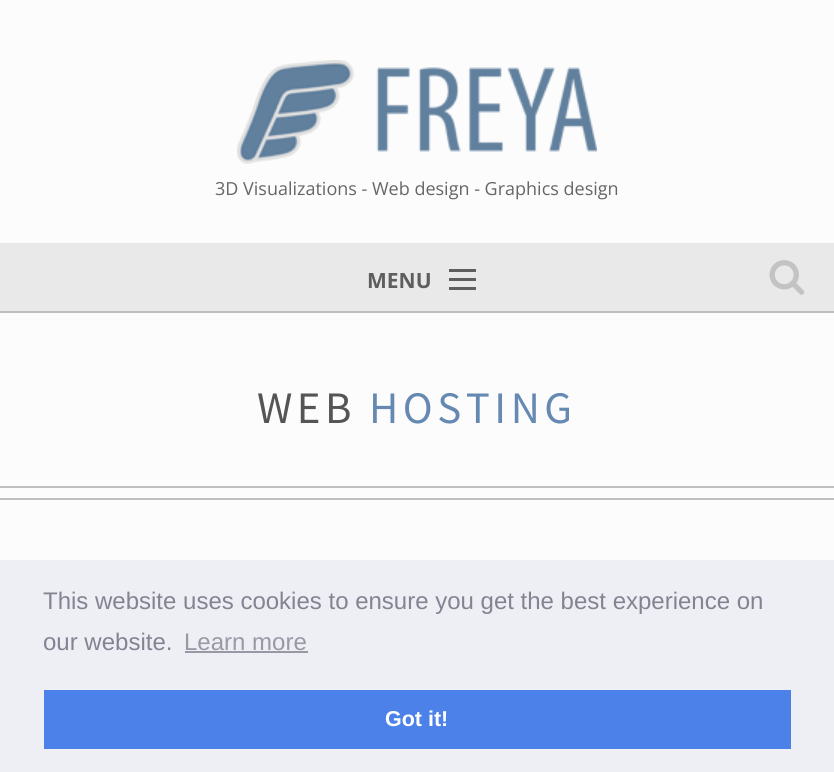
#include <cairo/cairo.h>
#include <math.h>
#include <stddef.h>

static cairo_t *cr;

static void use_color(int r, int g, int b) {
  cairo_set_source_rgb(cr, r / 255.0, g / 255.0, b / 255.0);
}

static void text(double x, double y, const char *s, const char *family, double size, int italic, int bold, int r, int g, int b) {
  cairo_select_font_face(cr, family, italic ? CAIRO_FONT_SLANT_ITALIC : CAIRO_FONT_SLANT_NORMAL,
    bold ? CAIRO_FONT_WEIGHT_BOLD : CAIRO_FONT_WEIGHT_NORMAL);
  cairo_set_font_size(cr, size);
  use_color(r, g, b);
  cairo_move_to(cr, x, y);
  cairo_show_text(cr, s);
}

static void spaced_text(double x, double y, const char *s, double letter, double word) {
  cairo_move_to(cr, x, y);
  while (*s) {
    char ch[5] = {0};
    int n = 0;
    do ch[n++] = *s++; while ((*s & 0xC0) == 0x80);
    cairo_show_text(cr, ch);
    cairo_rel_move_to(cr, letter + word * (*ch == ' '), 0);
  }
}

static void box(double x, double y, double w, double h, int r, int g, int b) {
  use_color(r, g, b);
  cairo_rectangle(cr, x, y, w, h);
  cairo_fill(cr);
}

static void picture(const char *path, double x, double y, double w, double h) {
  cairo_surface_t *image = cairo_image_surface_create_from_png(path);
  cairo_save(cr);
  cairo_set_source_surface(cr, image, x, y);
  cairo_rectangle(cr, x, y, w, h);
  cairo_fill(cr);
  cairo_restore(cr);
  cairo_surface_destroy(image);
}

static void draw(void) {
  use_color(252, 252, 252);
  cairo_paint(cr);
  picture("img_01.png", 237, 60, 360, 104);
  box(0, 243, 834, 68, 233, 233, 233);
  box(449, 287, 27, 3, 94, 94, 94);
  box(449, 278, 27, 3, 94, 94, 94);
  box(449, 269, 27, 3, 94, 94, 94);
  picture("img_02.png", 769, 260, 36, 35);
  box(0, 311, 834, 2, 190, 190, 190);
  box(0, 486, 834, 2, 190, 190, 190);
  box(0, 498, 834, 2, 190, 190, 190);
  box(0, 560, 834, 212, 237, 239, 245);
  box(185, 651, 123, 2, 152, 153, 165);
  box(44, 690, 747, 59, 75, 129, 232);
  text(215, 195, "3D Visualizations - Web design - Graphics design", "Open Sans", 18, 0, 0, 102, 102, 102);
  text(367, 288, "MENU", "Open Sans", 21, 0, 1, 94, 94, 94);
  cairo_select_font_face(cr, "Source Sans Pro", CAIRO_FONT_SLANT_NORMAL, CAIRO_FONT_WEIGHT_NORMAL);
  cairo_set_font_size(cr, 45);
  use_color(85, 85, 85);
  spaced_text(257, 423, "WEB", 4.5, 0);
  use_color(101, 137, 178);
  spaced_text(369, 423, "HOSTING", 4.5, 0);
  text(43, 609, "This website uses cookies to ensure you get the best experience on", "Liberation Sans", 24, 0, 0, 131, 131, 145);
  text(43, 650, "our website.", "Liberation Sans", 24, 0, 0, 131, 131, 145);
  text(184, 650, "Learn more", "Liberation Sans", 24, 0, 0, 152, 153, 165);
  text(385, 726, "Got it!", "Liberation Sans", 21.5, 0, 1, 255, 255, 255);
}

int main(void) {
  cairo_surface_t *surface = cairo_image_surface_create(CAIRO_FORMAT_RGB24, 834, 772);
  cr = cairo_create(surface);
  cairo_font_options_t *options = cairo_font_options_create();
  cairo_font_options_set_hint_metrics(options, CAIRO_HINT_METRICS_OFF);
  cairo_font_options_set_hint_style(options, CAIRO_HINT_STYLE_NONE);
  cairo_set_font_options(cr, options);
  cairo_set_miter_limit(cr, 4);
  draw();
  cairo_surface_write_to_png(surface, "out.png");
  cairo_font_options_destroy(options);
  cairo_destroy(cr);
  cairo_surface_destroy(surface);
  return 0;
}
